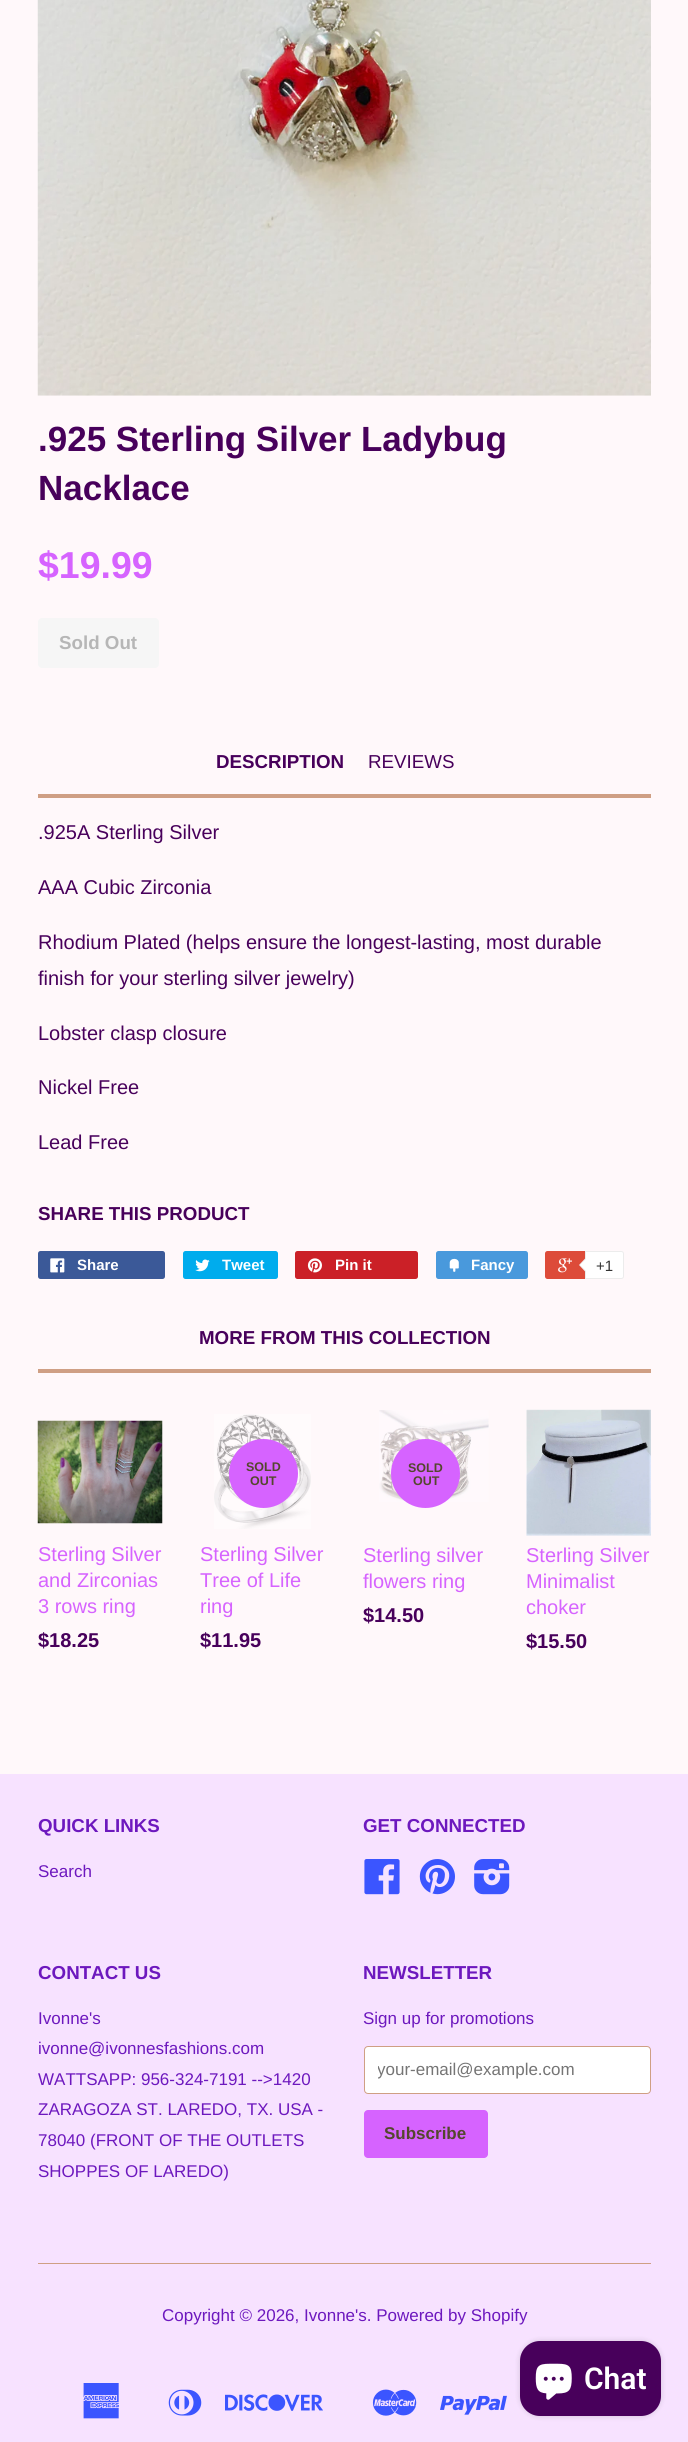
#include <cairo/cairo.h>
#include <math.h>
#include <stddef.h>

static cairo_t *cr;

static void use_color(int r, int g, int b) {
  cairo_set_source_rgb(cr, r / 255.0, g / 255.0, b / 255.0);
}

static void text(double x, double y, const char *s, const char *family, double size, int italic, int bold, int r, int g, int b) {
  cairo_select_font_face(cr, family, italic ? CAIRO_FONT_SLANT_ITALIC : CAIRO_FONT_SLANT_NORMAL,
    bold ? CAIRO_FONT_WEIGHT_BOLD : CAIRO_FONT_WEIGHT_NORMAL);
  cairo_set_font_size(cr, size);
  use_color(r, g, b);
  cairo_move_to(cr, x, y);
  cairo_show_text(cr, s);
}

static void box(double x, double y, double w, double h, int r, int g, int b) {
  use_color(r, g, b);
  cairo_rectangle(cr, x, y, w, h);
  cairo_fill(cr);
}

static void round_rect(double x, double y, double w, double h, double r) {
  cairo_new_sub_path(cr);
  cairo_arc(cr, x + w - r, y + h - r, r, 0, M_PI / 2);
  cairo_arc(cr, x + r, y + h - r, r, M_PI / 2, M_PI);
  cairo_arc(cr, x + r, y + r, r, M_PI, 1.5 * M_PI);
  cairo_arc(cr, x + w - r, y + r, r, 1.5 * M_PI, 2 * M_PI);
  cairo_close_path(cr);
}

static void shadow(double x, double y, double w, double h, double r, double blur, double alpha) {
  cairo_push_group_with_content(cr, CAIRO_CONTENT_ALPHA);
  cairo_set_operator(cr, CAIRO_OPERATOR_SOURCE);
  for (int i = 15; i >= -15 && fmin(w, h) + blur * i / 3 > 0; i -= 2) {
    double e = blur * i / 6;
    cairo_set_source_rgba(cr, 0, 0, 0, alpha * erfc((i - 1) / 8.5) / 2);
    round_rect(x - e, y - e, w + 2 * e, h + 2 * e, fmax(0, fmin(r + e + blur * .6, fmin(w, h) / 2 + e)));
    cairo_fill(cr);
  }
  cairo_pattern_t *soft = cairo_pop_group(cr);
  cairo_mask(cr, soft);
  cairo_pattern_destroy(soft);
}

static void picture(const char *path, double x, double y, double w, double h) {
  cairo_surface_t *image = cairo_image_surface_create_from_png(path);
  cairo_save(cr);
  cairo_set_source_surface(cr, image, x, y);
  cairo_rectangle(cr, x, y, w, h);
  cairo_fill(cr);
  cairo_restore(cr);
  cairo_surface_destroy(image);
}

static void draw(void) {
  use_color(255, 248, 250);
  cairo_paint(cr);
  picture("img_01.png", 37, 0, 614, 396);
  use_color(246, 246, 246);
  round_rect(38, 618, 121, 50, 4);
  cairo_fill(cr);
  box(38, 794, 613, 4, 207, 159, 132);
  use_color(59, 89, 152);
  round_rect(38, 1251, 127, 28, 2.5);
  cairo_fill(cr);
  picture("img_02.png", 50, 1258, 15, 15);
  use_color(0, 172, 237);
  round_rect(183, 1251, 95, 28, 2.5);
  cairo_fill(cr);
  picture("img_03.png", 195, 1259, 15, 13);
  use_color(203, 32, 39);
  round_rect(295, 1251, 123, 28, 2.5);
  cairo_fill(cr);
  picture("img_04.png", 307, 1258, 15, 15);
  use_color(73, 153, 220);
  round_rect(436, 1251, 92, 28, 2.5);
  cairo_fill(cr);
  picture("img_05.png", 449, 1258, 10, 14);
  use_color(221, 75, 57);
  round_rect(545, 1251, 76, 28, 2.5);
  cairo_fill(cr);
  picture("img_06.png", 558, 1258, 14, 15);
  use_color(255, 255, 255);
  cairo_new_path(cr);
  cairo_move_to(cr, 585.5, 1251.5);
  cairo_line_to(cr, 621.5, 1251.5);
  cairo_curve_to(cr, 622.5, 1251.5, 623.5, 1252.5, 623.5, 1253.5);
  cairo_line_to(cr, 623.5, 1276.5);
  cairo_curve_to(cr, 623.5, 1277.5, 622.5, 1278.5, 621.5, 1278.5);
  cairo_line_to(cr, 585.5, 1278.5);
  cairo_close_path(cr);
  cairo_fill_preserve(cr);
  use_color(236, 236, 236);
  cairo_set_line_width(cr, 1);
  cairo_stroke(cr);
  cairo_new_path(cr);
  cairo_move_to(cr, 586, 1257.5);
  cairo_line_to(cr, 586, 1272.5);
  cairo_line_to(cr, 579, 1265);
  cairo_close_path(cr);
  cairo_fill(cr);
  use_color(255, 255, 255);
  cairo_new_path(cr);
  cairo_move_to(cr, 587.5, 1257.5);
  cairo_line_to(cr, 587.5, 1272.5);
  cairo_line_to(cr, 580, 1265);
  cairo_close_path(cr);
  cairo_fill(cr);
  box(38, 1369, 613, 4, 207, 159, 132);
  picture("img_07.png", 37, 1420, 126, 104);
  picture("img_08.png", 214, 1414, 97, 115);
  use_color(214, 99, 255);
  cairo_arc(cr, 263.5, 1473.5, 34.5, 0, 2 * M_PI);
  cairo_fill(cr);
  picture("img_09.png", 379, 1410, 110, 92);
  cairo_arc(cr, 425.5, 1473.5, 34.5, 0, 2 * M_PI);
  cairo_fill(cr);
  picture("img_10.png", 526, 1409, 125, 127);
  box(0, 1774, 688, 668, 247, 226, 255);
  picture("img_11.png", 364, 1859, 36, 36);
  picture("img_12.png", 419, 1859, 36, 36);
  picture("img_13.png", 474, 1859, 36, 36);
  use_color(255, 255, 255);
  round_rect(364.5, 2046.5, 286, 47, 3.5);
  cairo_fill_preserve(cr);
  use_color(207, 159, 132);
  cairo_stroke(cr);
  use_color(214, 99, 255);
  round_rect(364, 2110, 124, 48, 4);
  cairo_fill(cr);
  box(38, 2263, 613, 1, 207, 159, 132);
  picture("img_14.png", 83, 2383, 36, 36);
  picture("img_15.png", 168, 2389, 34, 27);
  picture("img_16.png", 225, 2394, 98, 17);
  picture("img_17.png", 372, 2389, 45, 27);
  picture("img_18.png", 440, 2395, 67, 20);
  use_color(0, 0, 0);
  shadow(520, 2341, 141, 75, 20, 3, 0.15);
  use_color(72, 0, 91);
  round_rect(520, 2341, 141, 75, 20);
  cairo_fill(cr);
  picture("img_19.png", 535, 2363, 37, 37);
  text(38, 451, ".925 Sterling Silver Ladybug", "Liberation Sans", 35, 0, 1, 72, 0, 91);
  text(38, 500, "Nacklace", "Liberation Sans", 35, 0, 1, 72, 0, 91);
  text(38, 578, "$19.99", "Liberation Sans", 37.5, 0, 1, 214, 99, 255);
  text(59, 649, "Sold Out", "Liberation Sans", 18.75, 0, 1, 182, 182, 182);
  text(216, 768, "DESCRIPTION", "Liberation Sans", 18.75, 0, 1, 72, 0, 91);
  text(368, 768, "REVIEWS", "Liberation Sans", 18.75, 0, 0, 72, 0, 91);
  text(38, 839, ".925A Sterling Silver", "Liberation Sans", 20, 0, 0, 72, 0, 91);
  text(38, 894, "AAA Cubic Zirconia", "Liberation Sans", 20, 0, 0, 72, 0, 91);
  text(38, 949, "Rhodium Plated (helps ensure the longest-lasting, most durable", "Liberation Sans", 20, 0, 0, 72, 0, 91);
  text(38, 985, "finish for your sterling silver jewelry)", "Liberation Sans", 20, 0, 0, 72, 0, 91);
  text(38, 1040, "Lobster clasp closure", "Liberation Sans", 20, 0, 0, 72, 0, 91);
  text(38, 1094, "Nickel Free", "Liberation Sans", 20, 0, 0, 72, 0, 91);
  text(38, 1149, "Lead Free", "Liberation Sans", 20, 0, 0, 72, 0, 91);
  text(38, 1220, "SHARE THIS PRODUCT", "Liberation Sans", 18.75, 0, 1, 72, 0, 91);
  text(77, 1270, "Share", "Liberation Sans", 15, 0, 1, 255, 255, 255);
  text(222, 1270, "Tweet", "Liberation Sans", 15, 0, 1, 255, 255, 255);
  text(335, 1270, "Pin it", "Liberation Sans", 15, 0, 1, 255, 255, 255);
  text(471, 1270, "Fancy", "Liberation Sans", 15, 0, 1, 255, 255, 255);
  text(596, 1271, "+1", "Liberation Sans", 15, 0, 0, 51, 51, 51);
  text(199, 1344, "MORE FROM THIS COLLECTION", "Liberation Sans", 18.75, 0, 1, 72, 0, 91);
  text(38, 1561, "Sterling Silver", "Liberation Sans", 20, 0, 0, 214, 99, 255);
  text(38, 1587, "and Zirconias", "Liberation Sans", 20, 0, 0, 214, 99, 255);
  text(38, 1613, "3 rows ring", "Liberation Sans", 20, 0, 0, 214, 99, 255);
  text(38, 1647, "$18.25", "Liberation Sans", 20, 0, 1, 72, 0, 91);
  text(246, 1471, "SOLD", "Liberation Sans", 12.5, 0, 1, 84, 71, 45);
  text(250, 1485, "OUT", "Liberation Sans", 12.5, 0, 1, 84, 71, 45);
  text(200, 1561, "Sterling Silver", "Liberation Sans", 20, 0, 0, 214, 99, 255);
  text(200, 1587, "Tree of Life", "Liberation Sans", 20, 0, 0, 214, 99, 255);
  text(200, 1613, "ring", "Liberation Sans", 20, 0, 0, 214, 99, 255);
  text(200, 1647, "$11.95", "Liberation Sans", 20, 0, 1, 72, 0, 91);
  text(408, 1472, "SOLD", "Liberation Sans", 12.5, 0, 1, 84, 71, 45);
  text(413, 1485, "OUT", "Liberation Sans", 12.5, 0, 1, 84, 71, 45);
  text(363, 1562, "Sterling silver", "Liberation Sans", 20, 0, 0, 214, 99, 255);
  text(363, 1588, "flowers ring", "Liberation Sans", 20, 0, 0, 214, 99, 255);
  text(363, 1622, "$14.50", "Liberation Sans", 20, 0, 1, 72, 0, 91);
  text(526, 1562, "Sterling Silver", "Liberation Sans", 20, 0, 0, 214, 99, 255);
  text(526, 1588, "Minimalist", "Liberation Sans", 20, 0, 0, 214, 99, 255);
  text(526, 1614, "choker", "Liberation Sans", 20, 0, 0, 214, 99, 255);
  text(526, 1648, "$15.50", "Liberation Sans", 20, 0, 1, 72, 0, 91);
  text(38, 1832, "QUICK LINKS", "Liberation Sans", 18.75, 0, 1, 109, 24, 190);
  text(38, 1877, "Search", "Liberation Sans", 17, 0, 0, 109, 24, 190);
  text(363, 1832, "GET CONNECTED", "Liberation Sans", 18.75, 0, 1, 109, 24, 190);
  text(38, 1979, "CONTACT US", "Liberation Sans", 18.75, 0, 1, 109, 24, 190);
  text(38, 2024, "Ivonne's", "Liberation Sans", 17, 0, 0, 109, 24, 190);
  text(38, 2054, "ivonne@ivonnesfashions.com", "Liberation Sans", 17, 0, 0, 109, 24, 190);
  text(38, 2085, "WATTSAPP: 956-324-7191 -->1420", "Liberation Sans", 17, 0, 0, 109, 24, 190);
  text(38, 2115, "ZARAGOZA ST. LAREDO, TX. USA -", "Liberation Sans", 17, 0, 0, 109, 24, 190);
  text(38, 2146, "78040 (FRONT OF THE OUTLETS", "Liberation Sans", 17, 0, 0, 109, 24, 190);
  text(38, 2177, "SHOPPES OF LAREDO)", "Liberation Sans", 17, 0, 0, 109, 24, 190);
  text(363, 1979, "NEWSLETTER", "Liberation Sans", 18.75, 0, 1, 109, 24, 190);
  text(363, 2024, "Sign up for promotions", "Liberation Sans", 17, 0, 0, 109, 24, 190);
  cairo_save(cr);
  cairo_rectangle(cr, 378, 2060, 260, 19);
  cairo_clip(cr);
  text(377, 2075, "your-email@example.com", "Liberation Sans", 17, 0, 0, 117, 117, 117);
  cairo_restore(cr);
  text(384, 2139, "Subscribe", "Liberation Sans", 17, 0, 1, 84, 71, 45);
  text(162, 2321, "Copyright © 2026, Ivonne's. Powered by Shopify", "Liberation Sans", 17, 0, 0, 109, 24, 190);
  text(584, 2389, "Chat", "Roboto SemiBold", 30, 0, 0, 255, 255, 255);
}

int main(void) {
  cairo_surface_t *surface = cairo_image_surface_create(CAIRO_FORMAT_RGB24, 688, 2442);
  cr = cairo_create(surface);
  cairo_font_options_t *options = cairo_font_options_create();
  cairo_font_options_set_hint_metrics(options, CAIRO_HINT_METRICS_OFF);
  cairo_font_options_set_hint_style(options, CAIRO_HINT_STYLE_NONE);
  cairo_set_font_options(cr, options);
  cairo_set_miter_limit(cr, 4);
  draw();
  cairo_surface_write_to_png(surface, "out.png");
  cairo_font_options_destroy(options);
  cairo_destroy(cr);
  cairo_surface_destroy(surface);
  return 0;
}
